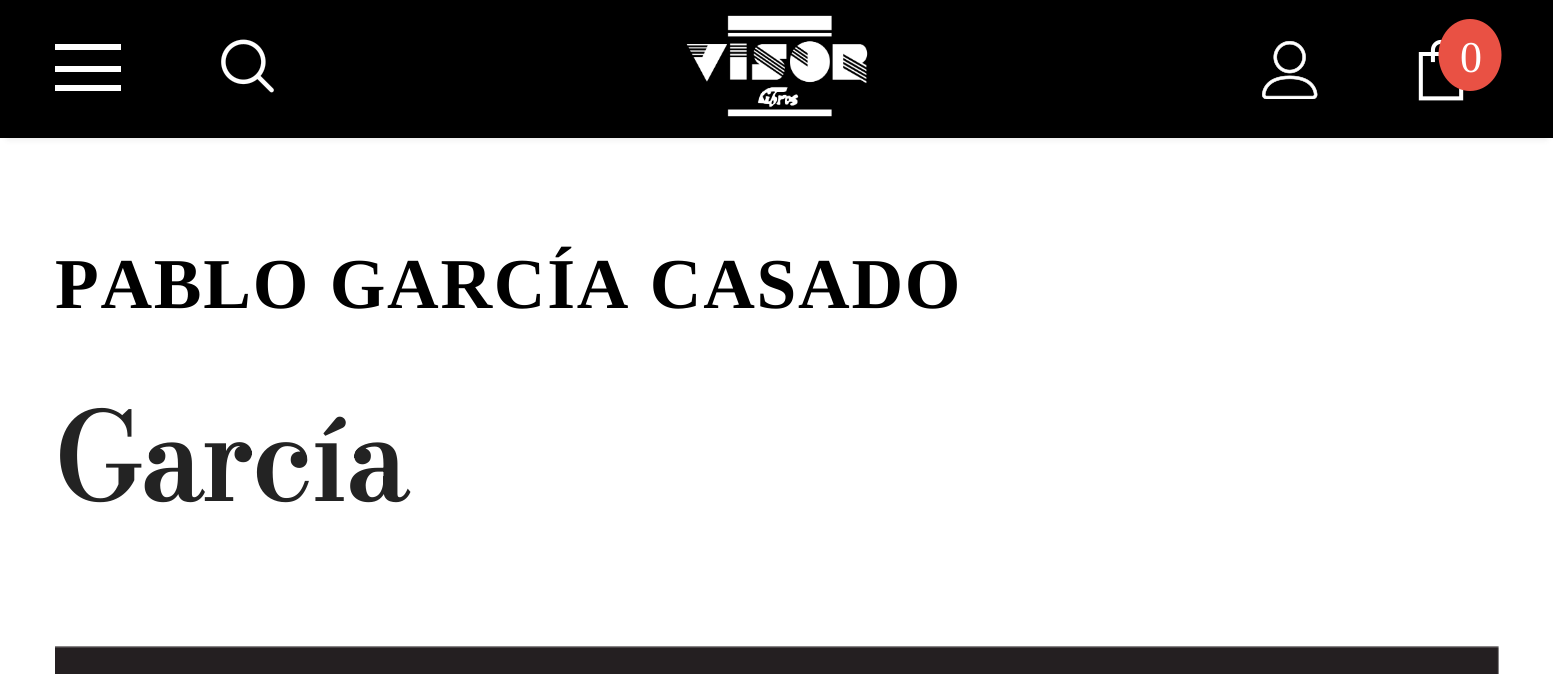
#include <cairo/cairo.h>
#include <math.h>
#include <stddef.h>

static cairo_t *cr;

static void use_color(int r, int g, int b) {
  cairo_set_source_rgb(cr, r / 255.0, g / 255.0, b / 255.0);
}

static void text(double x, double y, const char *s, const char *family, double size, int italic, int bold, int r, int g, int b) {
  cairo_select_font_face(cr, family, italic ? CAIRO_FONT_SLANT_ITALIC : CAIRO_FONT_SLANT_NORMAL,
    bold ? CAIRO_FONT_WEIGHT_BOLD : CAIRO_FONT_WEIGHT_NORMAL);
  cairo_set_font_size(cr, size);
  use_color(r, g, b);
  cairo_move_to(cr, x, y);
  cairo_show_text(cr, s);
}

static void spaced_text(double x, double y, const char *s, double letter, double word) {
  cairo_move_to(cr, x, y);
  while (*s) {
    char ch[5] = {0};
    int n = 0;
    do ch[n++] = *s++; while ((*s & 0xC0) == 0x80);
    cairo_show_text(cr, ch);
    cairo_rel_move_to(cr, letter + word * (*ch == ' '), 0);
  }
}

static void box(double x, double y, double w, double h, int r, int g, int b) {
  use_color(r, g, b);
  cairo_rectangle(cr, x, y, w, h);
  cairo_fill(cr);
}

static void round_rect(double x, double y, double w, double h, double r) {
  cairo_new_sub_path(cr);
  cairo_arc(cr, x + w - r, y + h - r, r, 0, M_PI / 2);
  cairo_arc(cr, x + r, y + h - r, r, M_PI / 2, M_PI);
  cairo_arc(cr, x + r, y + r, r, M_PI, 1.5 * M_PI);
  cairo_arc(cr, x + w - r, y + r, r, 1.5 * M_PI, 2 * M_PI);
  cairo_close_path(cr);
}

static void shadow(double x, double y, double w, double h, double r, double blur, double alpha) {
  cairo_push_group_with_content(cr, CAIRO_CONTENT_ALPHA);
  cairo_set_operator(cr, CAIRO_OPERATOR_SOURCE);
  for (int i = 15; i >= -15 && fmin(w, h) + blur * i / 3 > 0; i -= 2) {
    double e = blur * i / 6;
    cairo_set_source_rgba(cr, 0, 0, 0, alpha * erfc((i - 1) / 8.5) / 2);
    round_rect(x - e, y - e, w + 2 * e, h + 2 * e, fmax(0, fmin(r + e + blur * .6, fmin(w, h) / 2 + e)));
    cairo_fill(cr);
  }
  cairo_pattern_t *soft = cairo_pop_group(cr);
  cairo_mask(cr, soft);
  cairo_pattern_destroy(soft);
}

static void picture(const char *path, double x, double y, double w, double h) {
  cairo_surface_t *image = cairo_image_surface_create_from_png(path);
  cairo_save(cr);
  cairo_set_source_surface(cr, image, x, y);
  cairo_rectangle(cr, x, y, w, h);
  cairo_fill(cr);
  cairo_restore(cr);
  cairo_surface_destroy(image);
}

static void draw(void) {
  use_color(255, 255, 255);
  cairo_paint(cr);
  use_color(0, 0, 0);
  shadow(8, 17, 1538, 121, 0, 4, 0.12);
  box(0, 0, 1553, 138, 0, 0, 0);
  box(55, 44, 66, 6, 255, 255, 255);
  box(55, 66, 66, 6, 255, 255, 255);
  box(55, 85, 66, 6, 255, 255, 255);
  picture("img_01.png", 221, 39, 53, 54);
  picture("img_02.png", 686, 15, 182, 102);
  picture("img_03.png", 1262, 41, 56, 58);
  picture("img_04.png", 1418, 39, 46, 62);
  use_color(233, 81, 68);
  cairo_new_path(cr);
  cairo_move_to(cr, 1470, 19);
  cairo_curve_to(cr, 1487.5, 19, 1501.5, 35, 1501.5, 55);
  cairo_curve_to(cr, 1501.5, 75, 1487.5, 91, 1470, 91);
  cairo_curve_to(cr, 1452.5, 91, 1438.5, 75, 1438.5, 55);
  cairo_curve_to(cr, 1438.5, 35, 1452.5, 19, 1470, 19);
  cairo_close_path(cr);
  cairo_fill(cr);
  picture("img_05.png", 55, 646, 1444, 28);
  text(1460, 72, "0", "Liberation Serif", 44, 0, 0, 255, 255, 255);
  cairo_select_font_face(cr, "Liberation Serif", CAIRO_FONT_SLANT_NORMAL, CAIRO_FONT_WEIGHT_BOLD);
  cairo_set_font_size(cr, 71.5);
  use_color(0, 0, 0);
  spaced_text(55, 308, "PABLO GARCÍA CASADO", 1.75, 0);
  text(55, 501, "García", "Bodoni Moda", 118, 0, 1, 35, 35, 35);
}

int main(void) {
  cairo_surface_t *surface = cairo_image_surface_create(CAIRO_FORMAT_RGB24, 1553, 674);
  cr = cairo_create(surface);
  cairo_font_options_t *options = cairo_font_options_create();
  cairo_font_options_set_hint_metrics(options, CAIRO_HINT_METRICS_OFF);
  cairo_font_options_set_hint_style(options, CAIRO_HINT_STYLE_NONE);
  cairo_set_font_options(cr, options);
  cairo_set_miter_limit(cr, 4);
  draw();
  cairo_surface_write_to_png(surface, "out.png");
  cairo_font_options_destroy(options);
  cairo_destroy(cr);
  cairo_surface_destroy(surface);
  return 0;
}
